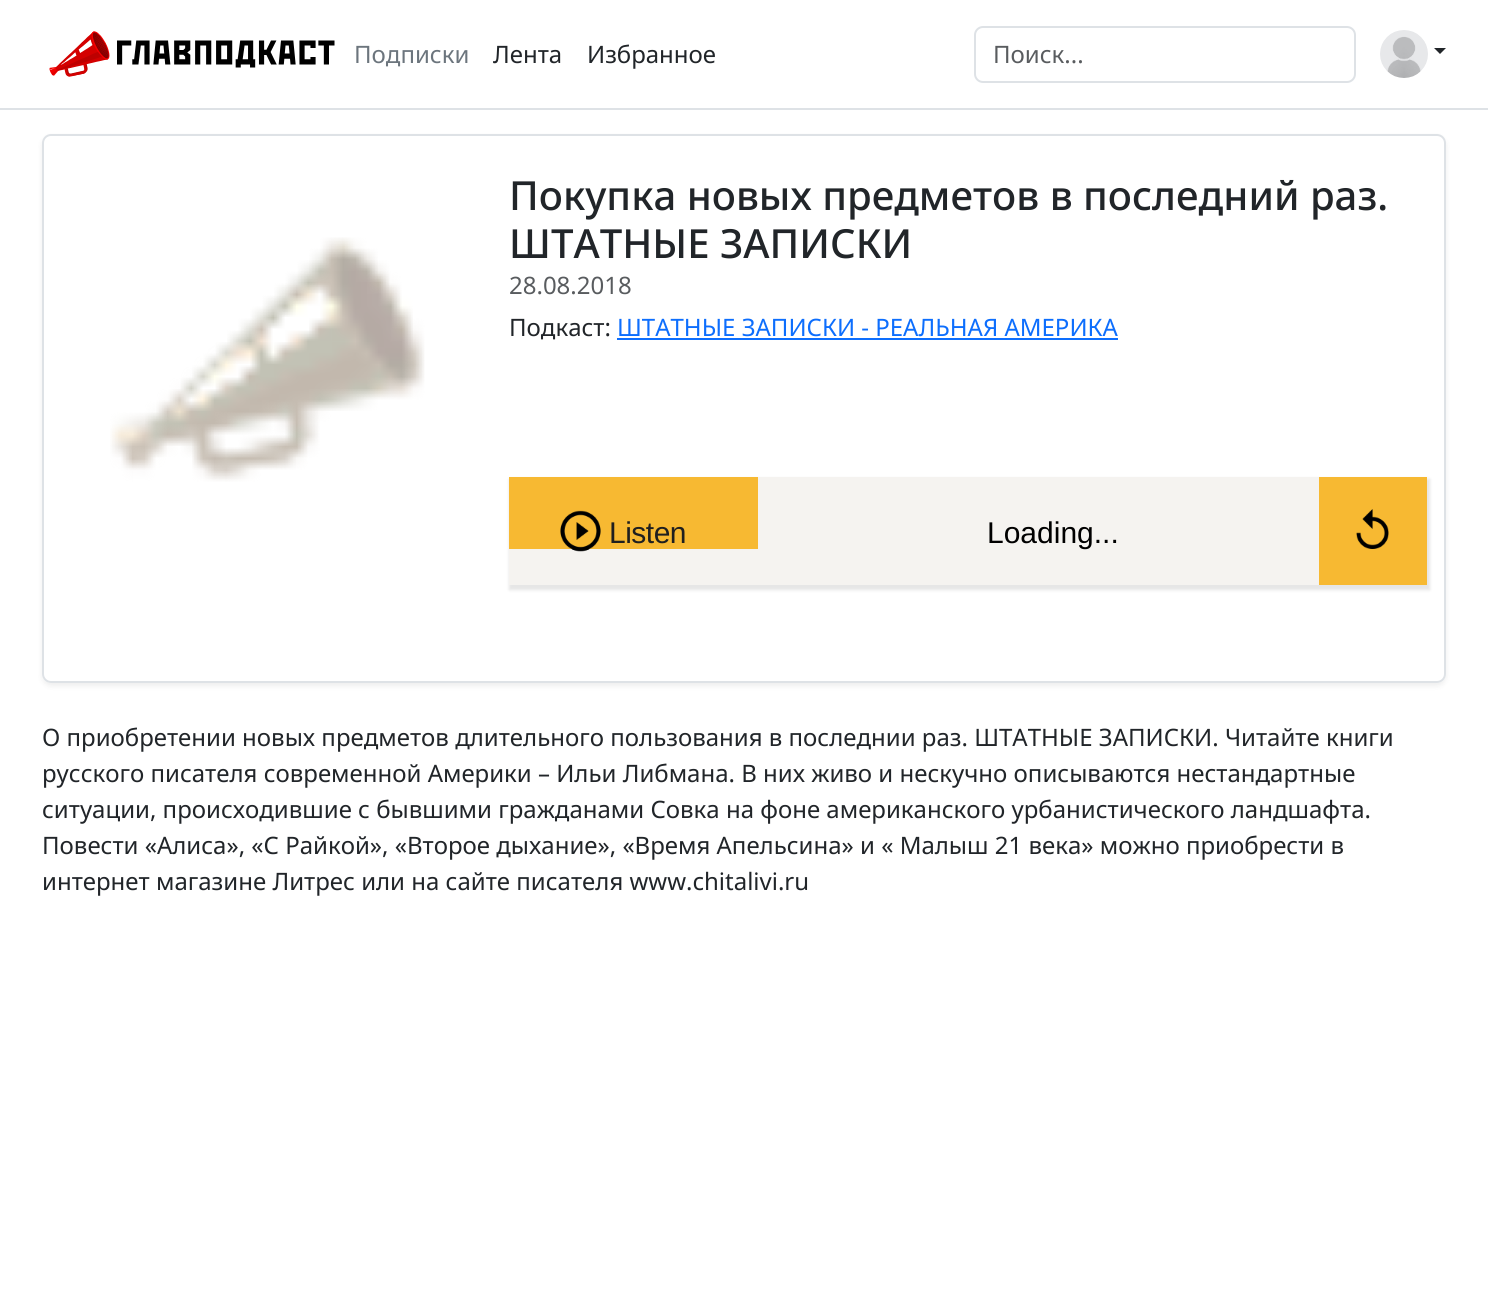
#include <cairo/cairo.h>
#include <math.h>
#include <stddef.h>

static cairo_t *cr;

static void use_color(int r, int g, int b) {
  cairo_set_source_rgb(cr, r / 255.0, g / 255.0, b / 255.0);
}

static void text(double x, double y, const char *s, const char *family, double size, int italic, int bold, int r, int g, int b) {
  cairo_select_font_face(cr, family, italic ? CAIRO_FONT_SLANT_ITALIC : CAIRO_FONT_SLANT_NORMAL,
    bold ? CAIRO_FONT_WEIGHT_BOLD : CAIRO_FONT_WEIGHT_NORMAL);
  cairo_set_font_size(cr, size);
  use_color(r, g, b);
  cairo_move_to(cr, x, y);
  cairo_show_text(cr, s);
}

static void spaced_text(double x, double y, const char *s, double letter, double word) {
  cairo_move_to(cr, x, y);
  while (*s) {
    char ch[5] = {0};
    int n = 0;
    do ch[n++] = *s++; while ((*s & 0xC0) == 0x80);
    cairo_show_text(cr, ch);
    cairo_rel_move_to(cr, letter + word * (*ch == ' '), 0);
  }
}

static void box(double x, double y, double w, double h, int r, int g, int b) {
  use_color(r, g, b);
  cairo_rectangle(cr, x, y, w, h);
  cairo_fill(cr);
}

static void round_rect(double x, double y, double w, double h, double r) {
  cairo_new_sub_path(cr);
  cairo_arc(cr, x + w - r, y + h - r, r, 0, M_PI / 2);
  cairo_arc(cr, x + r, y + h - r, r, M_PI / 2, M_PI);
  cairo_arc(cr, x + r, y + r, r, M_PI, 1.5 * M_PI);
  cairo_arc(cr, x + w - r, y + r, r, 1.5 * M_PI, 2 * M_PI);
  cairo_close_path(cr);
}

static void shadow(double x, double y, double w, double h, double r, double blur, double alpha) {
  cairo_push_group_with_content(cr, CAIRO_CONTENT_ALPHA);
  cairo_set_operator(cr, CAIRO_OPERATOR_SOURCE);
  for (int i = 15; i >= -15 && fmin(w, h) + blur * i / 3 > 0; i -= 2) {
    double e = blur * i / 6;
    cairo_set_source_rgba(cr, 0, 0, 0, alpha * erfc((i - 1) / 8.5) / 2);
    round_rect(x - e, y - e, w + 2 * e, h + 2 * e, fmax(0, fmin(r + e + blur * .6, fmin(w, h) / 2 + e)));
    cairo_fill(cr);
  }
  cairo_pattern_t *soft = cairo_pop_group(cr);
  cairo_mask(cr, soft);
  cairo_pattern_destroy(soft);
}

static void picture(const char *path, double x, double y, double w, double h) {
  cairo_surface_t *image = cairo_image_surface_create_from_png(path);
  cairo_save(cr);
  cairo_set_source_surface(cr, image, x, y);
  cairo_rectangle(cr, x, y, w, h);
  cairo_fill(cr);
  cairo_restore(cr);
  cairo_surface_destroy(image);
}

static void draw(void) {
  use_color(255, 255, 255);
  cairo_paint(cr);
  box(0, 108, 1488, 2, 222, 226, 230);
  picture("img_01.png", 49, 31, 286, 46);
  round_rect(975, 27, 380, 55, 8);
  cairo_stroke(cr);
  picture("img_02.png", 1380, 30, 48, 48);
  use_color(33, 37, 41);
  cairo_new_path(cr);
  cairo_move_to(cr, 1434, 48);
  cairo_line_to(cr, 1446, 48);
  cairo_line_to(cr, 1440, 54);
  cairo_close_path(cr);
  cairo_fill(cr);
  cairo_save(cr);
  cairo_set_fill_rule(cr, CAIRO_FILL_RULE_EVEN_ODD);
  cairo_new_path(cr);
  cairo_move_to(cr, 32, 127);
  cairo_line_to(cr, 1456, 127);
  cairo_line_to(cr, 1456, 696);
  cairo_line_to(cr, 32, 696);
  cairo_close_path(cr);
  cairo_move_to(cr, 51, 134);
  cairo_line_to(cr, 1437, 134);
  cairo_curve_to(cr, 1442, 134, 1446, 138, 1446, 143);
  cairo_line_to(cr, 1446, 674);
  cairo_curve_to(cr, 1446, 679, 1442, 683, 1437, 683);
  cairo_line_to(cr, 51, 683);
  cairo_curve_to(cr, 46, 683, 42, 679, 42, 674);
  cairo_line_to(cr, 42, 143);
  cairo_curve_to(cr, 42, 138, 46, 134, 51, 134);
  cairo_close_path(cr);
  cairo_clip(cr);
  use_color(0, 0, 0);
  shadow(42, 137, 1404, 549, 9, 3, 0.07);
  cairo_restore(cr);
  round_rect(43, 135, 1402, 547, 8);
  use_color(222, 226, 230);
  cairo_stroke(cr);
  picture("img_03.png", 110, 237, 315, 245);
  box(617, 338, 501, 2, 13, 110, 253);
  use_color(0, 0, 0);
  shadow(509, 479, 921, 111, 0, 1.5, 0.1);
  box(509, 477, 810, 108, 245, 243, 240);
  box(509, 477, 249, 72, 247, 185, 50);
  picture("img_06.png", 571, 549, 19, 3);
  picture("img_04.png", 560, 510, 41, 42);
  box(1319, 477, 108, 108, 247, 185, 50);
  picture("img_05.png", 1356, 509, 33, 40);
  text(354, 63, "Подписки", "Noto Sans", 24, 0, 0, 108, 117, 125);
  text(493, 63, "Лента", "Noto Sans", 24, 0, 0, 33, 37, 41);
  text(587, 63, "Избранное", "Noto Sans", 24, 0, 0, 33, 37, 41);
  text(993, 63, "Поиск...", "Noto Sans", 24, 0, 0, 89, 92, 95);
  text(509, 210, "Покупка новых предметов в последний раз.", "Noto Sans Medium", 40.1, 0, 0, 33, 37, 41);
  text(509, 258, "ШТАТНЫЕ ЗАПИСКИ", "Noto Sans Medium", 40.1, 0, 0, 33, 37, 41);
  text(509, 294, "28.08.2018", "Noto Sans", 24, 0, 0, 89, 92, 95);
  text(509, 336, "Подкаст:", "Noto Sans", 24, 0, 0, 33, 37, 41);
  text(617, 336, "ШТАТНЫЕ ЗАПИСКИ - РЕАЛЬНАЯ АМЕРИКА", "Noto Sans", 24, 0, 0, 13, 110, 253);
  cairo_select_font_face(cr, "Liberation Sans", CAIRO_FONT_SLANT_NORMAL, CAIRO_FONT_WEIGHT_NORMAL);
  cairo_set_font_size(cr, 30);
  use_color(31, 31, 31);
  spaced_text(609, 543, "Listen", -0.5, 0);
  text(987, 543, "Loading...", "Liberation Sans", 30, 0, 0, 0, 0, 0);
  text(42, 746, "О приобретении новых предметов длительного пользования в последнии раз. ШТАТНЫЕ ЗАПИСКИ. Читайте книги", "Noto Sans", 24, 0, 0, 33, 37, 41);
  text(42, 782, "русского писателя современной Америки – Ильи Либмана. В них живо и нескучно описываются нестандартные", "Noto Sans", 24, 0, 0, 33, 37, 41);
  text(42, 818, "ситуации, происходившие с бывшими гражданами Совка на фоне американского урбанистического ландшафта.", "Noto Sans", 24, 0, 0, 33, 37, 41);
  text(42, 854, "Повести «Алиса», «С Райкой», «Второе дыхание», «Время Апельсина» и « Малыш 21 века» можно приобрести в", "Noto Sans", 24, 0, 0, 33, 37, 41);
  text(42, 890, "интернет магазине Литрес или на сайте писателя www.chitalivi.ru", "Noto Sans", 24, 0, 0, 33, 37, 41);
}

int main(void) {
  cairo_surface_t *surface = cairo_image_surface_create(CAIRO_FORMAT_RGB24, 1488, 1307);
  cr = cairo_create(surface);
  cairo_font_options_t *options = cairo_font_options_create();
  cairo_font_options_set_hint_metrics(options, CAIRO_HINT_METRICS_OFF);
  cairo_font_options_set_hint_style(options, CAIRO_HINT_STYLE_NONE);
  cairo_set_font_options(cr, options);
  cairo_set_miter_limit(cr, 4);
  draw();
  cairo_surface_write_to_png(surface, "out.png");
  cairo_font_options_destroy(options);
  cairo_destroy(cr);
  cairo_surface_destroy(surface);
  return 0;
}
